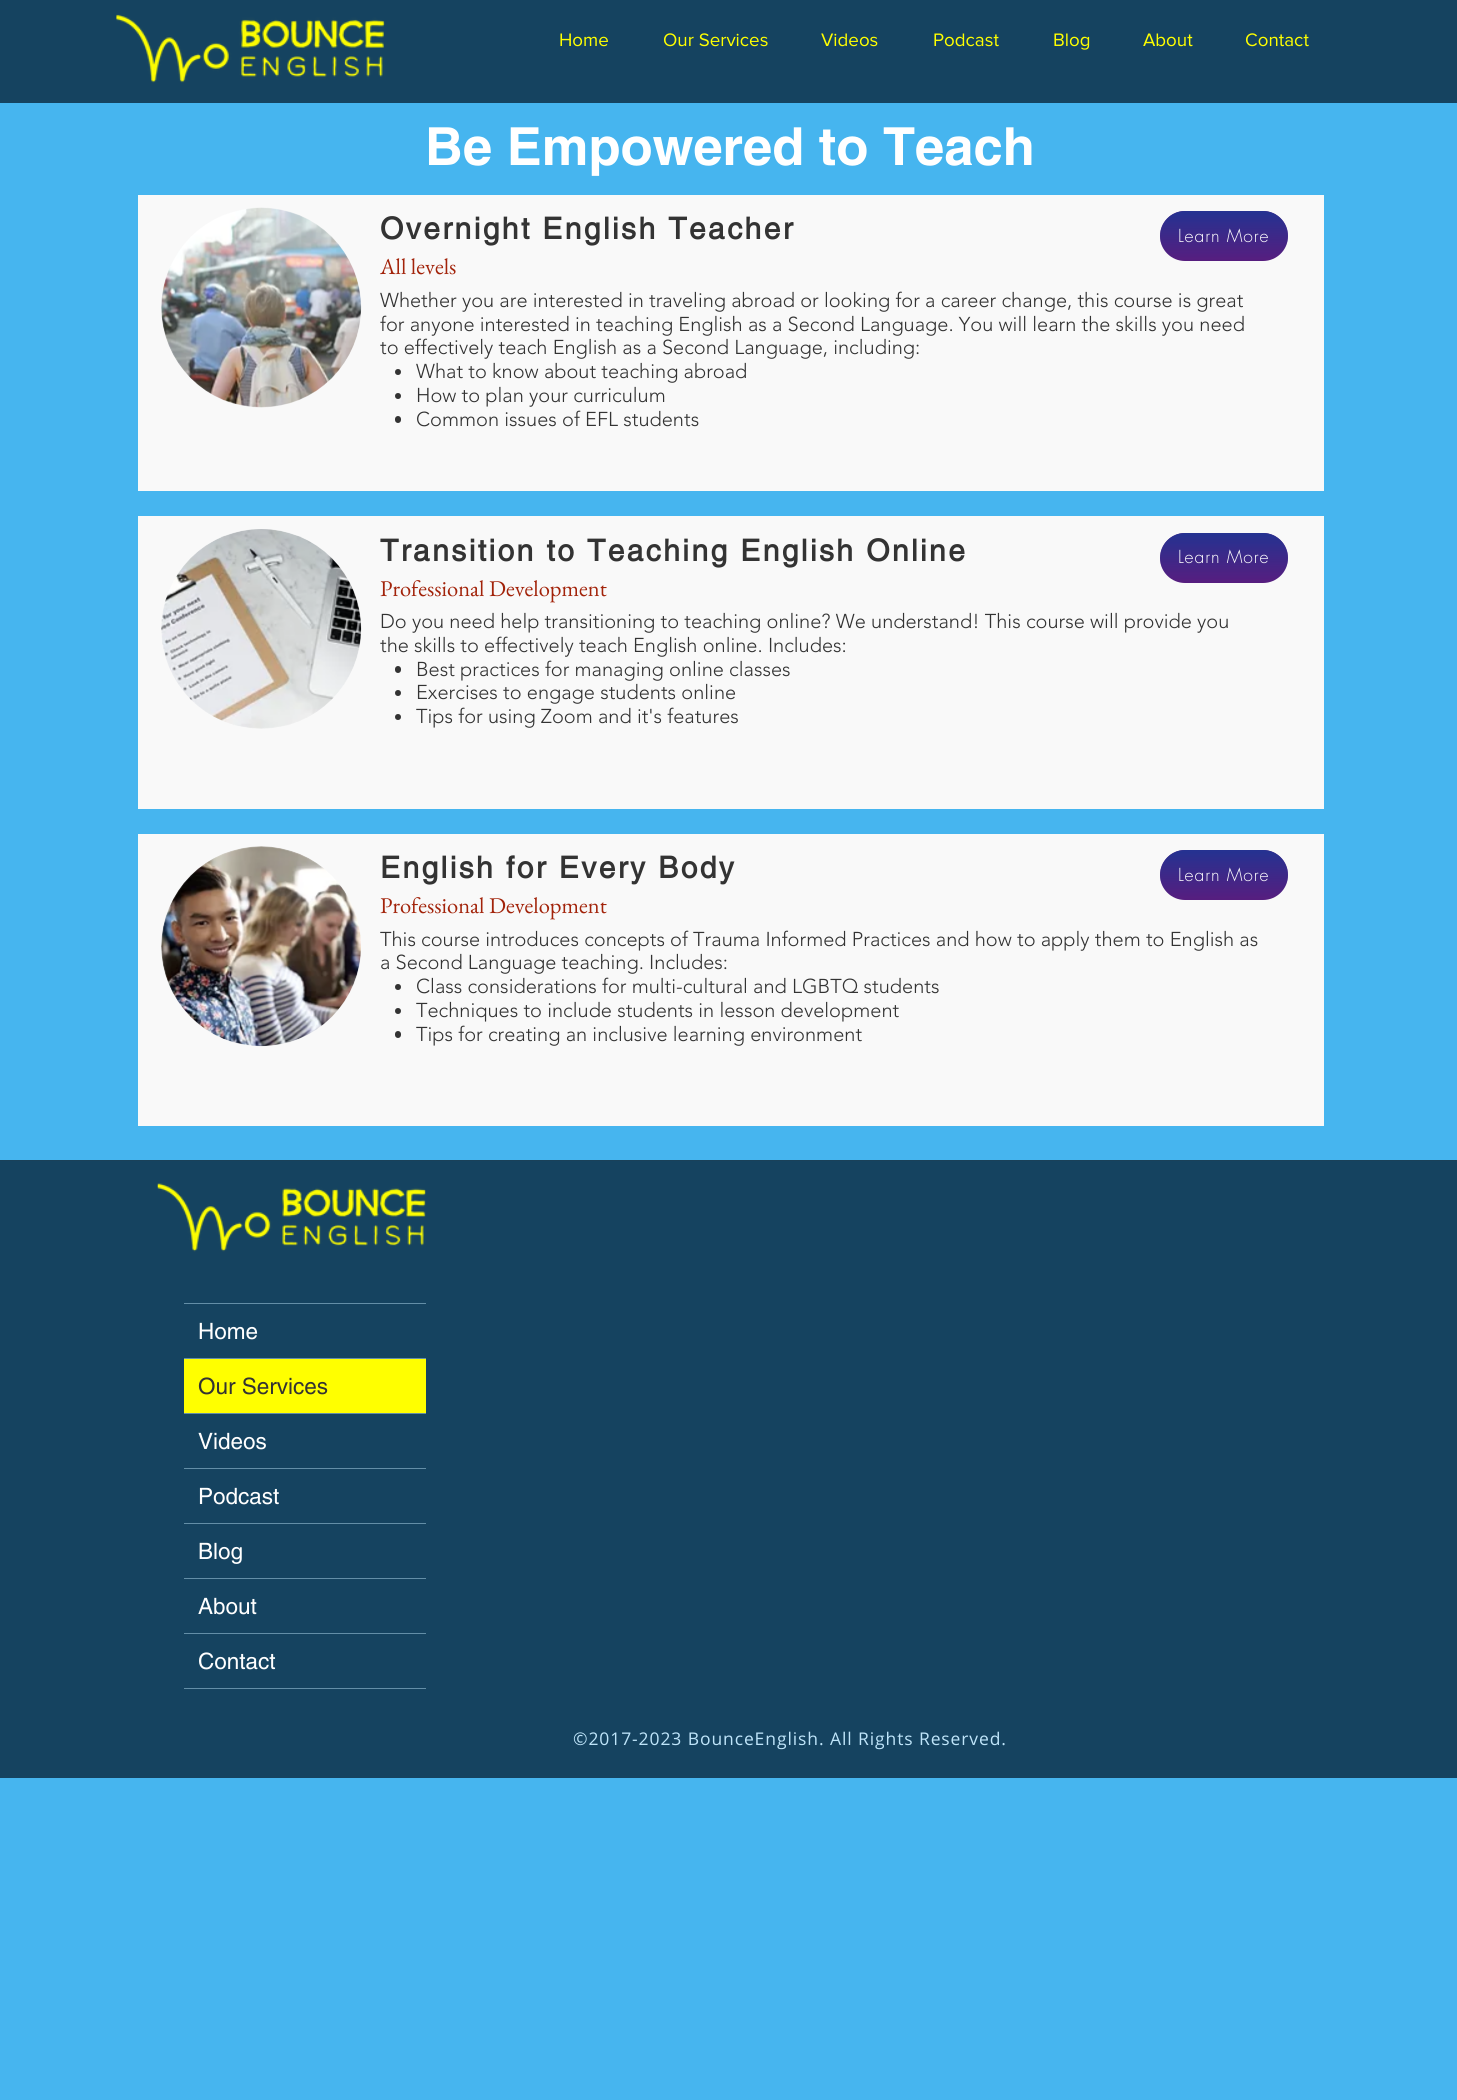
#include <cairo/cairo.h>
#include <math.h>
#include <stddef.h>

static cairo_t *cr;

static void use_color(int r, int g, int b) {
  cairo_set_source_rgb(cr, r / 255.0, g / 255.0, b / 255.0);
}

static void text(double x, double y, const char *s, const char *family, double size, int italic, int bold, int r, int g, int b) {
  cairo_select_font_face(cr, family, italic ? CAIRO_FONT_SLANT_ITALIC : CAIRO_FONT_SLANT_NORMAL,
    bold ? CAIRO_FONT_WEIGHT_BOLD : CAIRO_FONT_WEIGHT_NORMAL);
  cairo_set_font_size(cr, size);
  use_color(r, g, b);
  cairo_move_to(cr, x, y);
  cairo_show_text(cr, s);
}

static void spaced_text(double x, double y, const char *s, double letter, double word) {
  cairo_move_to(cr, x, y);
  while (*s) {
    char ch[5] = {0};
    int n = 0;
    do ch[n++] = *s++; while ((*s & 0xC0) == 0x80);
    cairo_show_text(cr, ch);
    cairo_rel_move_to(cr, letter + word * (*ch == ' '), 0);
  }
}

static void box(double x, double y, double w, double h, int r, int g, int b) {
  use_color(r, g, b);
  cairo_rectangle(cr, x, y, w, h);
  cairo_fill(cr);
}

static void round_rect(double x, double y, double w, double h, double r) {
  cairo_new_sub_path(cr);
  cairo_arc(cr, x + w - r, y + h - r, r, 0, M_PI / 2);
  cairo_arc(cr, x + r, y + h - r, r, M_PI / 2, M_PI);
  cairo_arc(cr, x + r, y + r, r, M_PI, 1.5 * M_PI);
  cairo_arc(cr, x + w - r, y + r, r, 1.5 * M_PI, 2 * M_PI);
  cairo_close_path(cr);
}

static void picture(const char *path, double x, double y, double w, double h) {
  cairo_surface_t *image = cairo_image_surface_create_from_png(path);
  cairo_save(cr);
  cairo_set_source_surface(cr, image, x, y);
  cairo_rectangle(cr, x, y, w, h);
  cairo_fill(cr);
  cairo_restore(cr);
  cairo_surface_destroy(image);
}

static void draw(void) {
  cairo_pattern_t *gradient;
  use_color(70, 181, 239);
  cairo_paint(cr);
  box(0, 0, 1457, 103, 21, 67, 96);
  picture("img_01.png", 116, 14, 269, 69);
  box(138, 195, 1186, 296, 249, 249, 249);
  picture("img_02.png", 161, 207, 201, 201);
  use_color(87, 29, 127);
  round_rect(1160, 211, 128, 50, 25);
  cairo_fill(cr);
  gradient = cairo_pattern_create_linear(1224, 211, 1224, 261);
  cairo_pattern_add_color_stop_rgba(gradient, 0, 0.141, 0.2, 0.569, 1);
  cairo_pattern_add_color_stop_rgba(gradient, 1, 0.141, 0.2, 0.569, 0);
  cairo_set_source(cr, gradient);
  cairo_pattern_destroy(gradient);
  round_rect(1160, 211, 128, 50, 25);
  cairo_fill(cr);
  use_color(51, 51, 51);
  cairo_arc(cr, 398, 372, 3, 0, 2 * M_PI);
  cairo_fill(cr);
  cairo_arc(cr, 398, 396, 3, 0, 2 * M_PI);
  cairo_fill(cr);
  round_rect(395, 416, 6, 7, 3);
  cairo_fill(cr);
  box(138, 516, 1186, 293, 249, 249, 249);
  picture("img_03.png", 161, 529, 201, 200);
  use_color(87, 29, 127);
  round_rect(1160, 533, 128, 50, 25);
  cairo_fill(cr);
  gradient = cairo_pattern_create_linear(1224, 533, 1224, 583);
  cairo_pattern_add_color_stop_rgba(gradient, 0, 0.141, 0.2, 0.569, 1);
  cairo_pattern_add_color_stop_rgba(gradient, 1, 0.141, 0.2, 0.569, 0);
  cairo_set_source(cr, gradient);
  cairo_pattern_destroy(gradient);
  round_rect(1160, 533, 128, 50, 25);
  cairo_fill(cr);
  use_color(51, 51, 51);
  round_rect(395, 666, 6, 7, 3);
  cairo_fill(cr);
  cairo_arc(cr, 398, 693, 3, 0, 2 * M_PI);
  cairo_fill(cr);
  cairo_arc(cr, 398, 717, 3, 0, 2 * M_PI);
  cairo_fill(cr);
  box(138, 834, 1186, 292, 249, 249, 249);
  picture("img_04.png", 161, 846, 200, 201);
  use_color(87, 29, 127);
  round_rect(1160, 850, 128, 50, 25);
  cairo_fill(cr);
  gradient = cairo_pattern_create_linear(1224, 850, 1224, 900);
  cairo_pattern_add_color_stop_rgba(gradient, 0, 0.141, 0.2, 0.569, 1);
  cairo_pattern_add_color_stop_rgba(gradient, 1, 0.141, 0.2, 0.569, 0);
  cairo_set_source(cr, gradient);
  cairo_pattern_destroy(gradient);
  round_rect(1160, 850, 128, 50, 25);
  cairo_fill(cr);
  use_color(51, 51, 51);
  cairo_arc(cr, 398, 987, 3, 0, 2 * M_PI);
  cairo_fill(cr);
  cairo_arc(cr, 398, 1011, 3, 0, 2 * M_PI);
  cairo_fill(cr);
  round_rect(395, 1031, 6, 7, 3);
  cairo_fill(cr);
  box(0, 1161, 1457, 617, 21, 67, 96);
  box(0, 1160, 1457, 1, 26, 65, 89);
  picture("img_05.png", 157, 1183, 269, 69);
  box(184, 1303, 242, 1, 99, 142, 167);
  box(184, 1688, 242, 1, 99, 142, 167);
  box(184, 1358, 242, 1, 99, 142, 167);
  box(184, 1413, 242, 1, 99, 142, 167);
  box(184, 1359, 242, 54, 255, 255, 0);
  box(184, 1468, 242, 1, 99, 142, 167);
  box(184, 1523, 242, 1, 99, 142, 167);
  box(184, 1578, 242, 1, 99, 142, 167);
  box(184, 1633, 242, 1, 99, 142, 167);
  text(559, 46, "Home", "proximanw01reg", 18.75, 0, 0, 255, 255, 0);
  text(663, 46, "Our Services", "proximanw01reg", 18.75, 0, 0, 255, 255, 0);
  text(821, 46, "Videos", "proximanw01reg", 18.75, 0, 0, 255, 255, 0);
  text(933, 46, "Podcast", "proximanw01reg", 18.75, 0, 0, 255, 255, 0);
  text(1053, 46, "Blog", "proximanw01reg", 18.75, 0, 0, 255, 255, 0);
  text(1143, 46, "About", "proximanw01reg", 18.75, 0, 0, 255, 255, 0);
  text(1245, 46, "Contact", "proximanw01reg", 18.75, 0, 0, 255, 255, 0);
  text(425, 165, "Be Empowered to Teach", "helvetica", 52.5, 0, 1, 255, 255, 255);
  cairo_select_font_face(cr, "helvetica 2", CAIRO_FONT_SLANT_NORMAL, CAIRO_FONT_WEIGHT_BOLD);
  cairo_set_font_size(cr, 30);
  use_color(51, 51, 51);
  spaced_text(380, 239, "Overnight English Teacher", 2.4, 0);
  cairo_select_font_face(cr, "futura Light", CAIRO_FONT_SLANT_NORMAL, CAIRO_FONT_WEIGHT_NORMAL);
  cairo_set_font_size(cr, 17.5);
  use_color(255, 255, 255);
  spaced_text(1178, 242, "Learn More", 0.9, 0);
  text(380, 274, "All levels", "EB Garamond", 22.5, 0, 0, 162, 35, 10);
  text(380, 307, "Whether you are interested in traveling abroad or looking for a career change, this course is great", "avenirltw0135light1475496 Light", 20, 0, 0, 51, 51, 51);
  text(380, 331, "for anyone interested in teaching English as a Second Language. You will learn the skills you need", "avenirltw0135light1475496 Light", 20, 0, 0, 51, 51, 51);
  text(380, 354, "to effectively teach English as a Second Language, including:", "avenirltw0135light1475496 Light", 20, 0, 0, 51, 51, 51);
  text(416, 378, "What to know about teaching abroad", "avenirltw0135light1475496 Light", 20, 0, 0, 51, 51, 51);
  text(416, 402, "How to plan your curriculum", "avenirltw0135light1475496 Light", 20, 0, 0, 51, 51, 51);
  text(416, 426, "Common issues of EFL students", "avenirltw0135light1475496 Light", 20, 0, 0, 51, 51, 51);
  cairo_select_font_face(cr, "helvetica 2", CAIRO_FONT_SLANT_NORMAL, CAIRO_FONT_WEIGHT_BOLD);
  cairo_set_font_size(cr, 30);
  spaced_text(380, 561, "Transition to Teaching English Online", 2.4, 0);
  cairo_select_font_face(cr, "futura Light", CAIRO_FONT_SLANT_NORMAL, CAIRO_FONT_WEIGHT_NORMAL);
  cairo_set_font_size(cr, 17.5);
  use_color(255, 255, 255);
  spaced_text(1178, 563, "Learn More", 0.9, 0);
  text(380, 596, "Professional Development", "EB Garamond", 22.5, 0, 0, 162, 35, 10);
  text(380, 628, "Do you need help transitioning to teaching online? We understand! This course will provide you", "avenirltw0135light1475496 Light", 20, 0, 0, 51, 51, 51);
  text(380, 652, "the skills to effectively teach English online. Includes:", "avenirltw0135light1475496 Light", 20, 0, 0, 51, 51, 51);
  text(416, 676, "Best practices for managing online classes", "avenirltw0135light1475496 Light", 20, 0, 0, 51, 51, 51);
  text(416, 699, "Exercises to engage students online", "avenirltw0135light1475496 Light", 20, 0, 0, 51, 51, 51);
  text(416, 723, "Tips for using Zoom and it's features", "avenirltw0135light1475496 Light", 20, 0, 0, 51, 51, 51);
  cairo_select_font_face(cr, "helvetica 2", CAIRO_FONT_SLANT_NORMAL, CAIRO_FONT_WEIGHT_BOLD);
  cairo_set_font_size(cr, 30);
  spaced_text(380, 878, "English for Every Body", 2.4, 0);
  cairo_select_font_face(cr, "futura Light", CAIRO_FONT_SLANT_NORMAL, CAIRO_FONT_WEIGHT_NORMAL);
  cairo_set_font_size(cr, 17.5);
  use_color(255, 255, 255);
  spaced_text(1178, 881, "Learn More", 0.9, 0);
  text(380, 913, "Professional Development", "EB Garamond", 22.5, 0, 0, 162, 35, 10);
  text(380, 946, "This course introduces concepts of Trauma Informed Practices and how to apply them to English as", "avenirltw0135light1475496 Light", 20, 0, 0, 51, 51, 51);
  text(380, 969, "a Second Language teaching. Includes:", "avenirltw0135light1475496 Light", 20, 0, 0, 51, 51, 51);
  text(416, 993, "Class considerations for multi-cultural and LGBTQ students", "avenirltw0135light1475496 Light", 20, 0, 0, 51, 51, 51);
  text(416, 1017, "Techniques to include students in lesson development", "avenirltw0135light1475496 Light", 20, 0, 0, 51, 51, 51);
  text(416, 1041, "Tips for creating an inclusive learning environment", "avenirltw0135light1475496 Light", 20, 0, 0, 51, 51, 51);
  text(198, 1339, "Home", "helvetica", 22.5, 0, 0, 255, 255, 255);
  text(198, 1394, "Our Services", "helvetica", 22.5, 0, 0, 51, 51, 51);
  text(198, 1449, "Videos", "helvetica", 22.5, 0, 0, 255, 255, 255);
  text(198, 1504, "Podcast", "helvetica", 22.5, 0, 0, 255, 255, 255);
  text(198, 1559, "Blog", "helvetica", 22.5, 0, 0, 255, 255, 255);
  text(198, 1614, "About", "helvetica", 22.5, 0, 0, 255, 255, 255);
  text(198, 1669, "Contact", "helvetica", 22.5, 0, 0, 255, 255, 255);
  cairo_select_font_face(cr, "Open Sans", CAIRO_FONT_SLANT_NORMAL, CAIRO_FONT_WEIGHT_NORMAL);
  cairo_set_font_size(cr, 17.5);
  use_color(191, 229, 250);
  spaced_text(573, 1745, "©2017-2023 BounceEnglish. All Rights Reserved.", 0.9, 0);
}

int main(void) {
  cairo_surface_t *surface = cairo_image_surface_create(CAIRO_FORMAT_RGB24, 1457, 2100);
  cr = cairo_create(surface);
  cairo_font_options_t *options = cairo_font_options_create();
  cairo_font_options_set_hint_metrics(options, CAIRO_HINT_METRICS_OFF);
  cairo_font_options_set_hint_style(options, CAIRO_HINT_STYLE_NONE);
  cairo_set_font_options(cr, options);
  cairo_set_miter_limit(cr, 4);
  draw();
  cairo_surface_write_to_png(surface, "out.png");
  cairo_font_options_destroy(options);
  cairo_destroy(cr);
  cairo_surface_destroy(surface);
  return 0;
}
